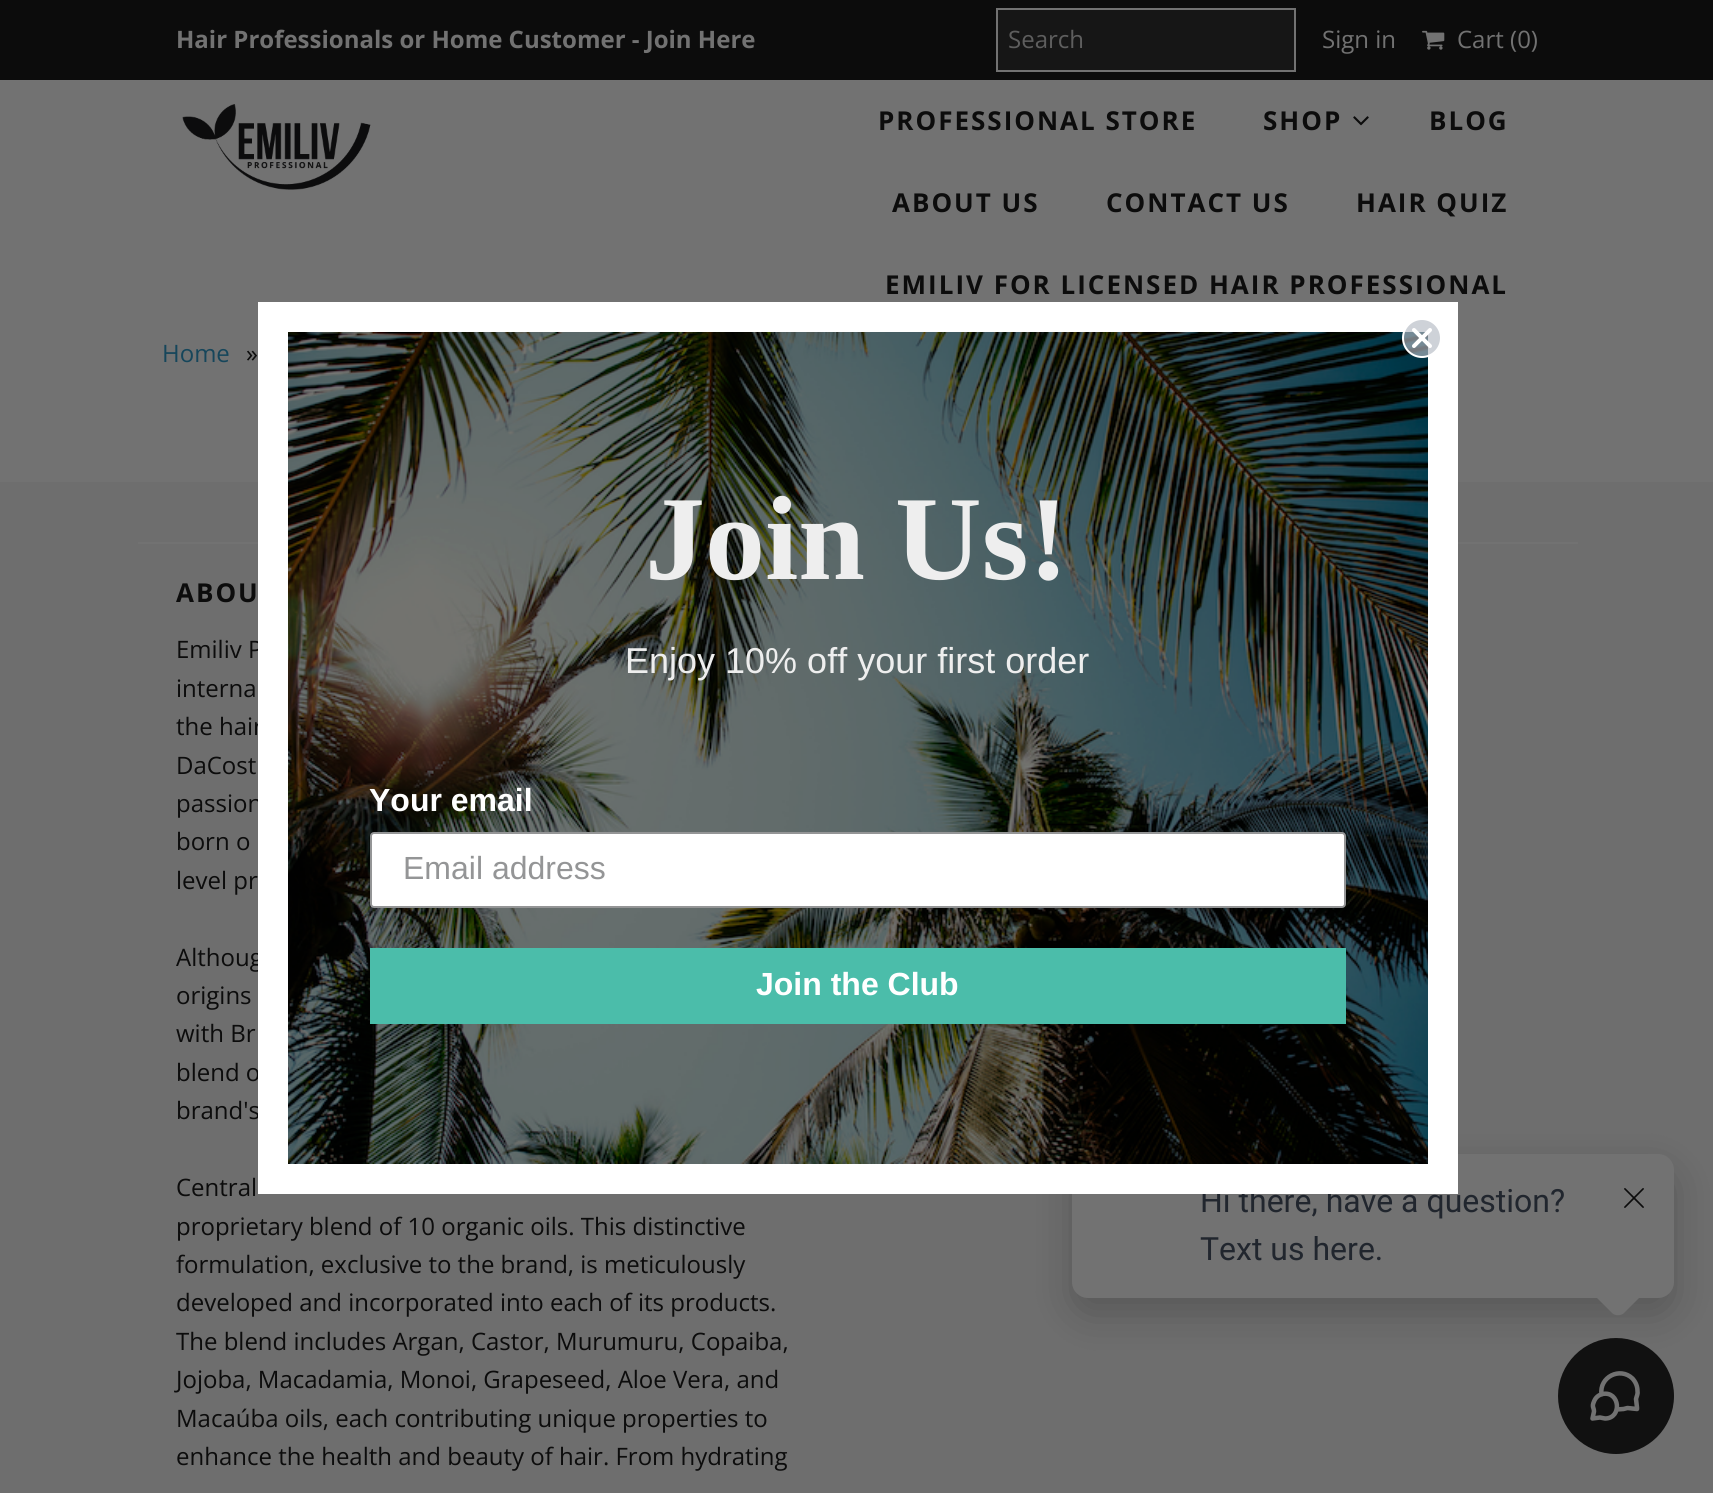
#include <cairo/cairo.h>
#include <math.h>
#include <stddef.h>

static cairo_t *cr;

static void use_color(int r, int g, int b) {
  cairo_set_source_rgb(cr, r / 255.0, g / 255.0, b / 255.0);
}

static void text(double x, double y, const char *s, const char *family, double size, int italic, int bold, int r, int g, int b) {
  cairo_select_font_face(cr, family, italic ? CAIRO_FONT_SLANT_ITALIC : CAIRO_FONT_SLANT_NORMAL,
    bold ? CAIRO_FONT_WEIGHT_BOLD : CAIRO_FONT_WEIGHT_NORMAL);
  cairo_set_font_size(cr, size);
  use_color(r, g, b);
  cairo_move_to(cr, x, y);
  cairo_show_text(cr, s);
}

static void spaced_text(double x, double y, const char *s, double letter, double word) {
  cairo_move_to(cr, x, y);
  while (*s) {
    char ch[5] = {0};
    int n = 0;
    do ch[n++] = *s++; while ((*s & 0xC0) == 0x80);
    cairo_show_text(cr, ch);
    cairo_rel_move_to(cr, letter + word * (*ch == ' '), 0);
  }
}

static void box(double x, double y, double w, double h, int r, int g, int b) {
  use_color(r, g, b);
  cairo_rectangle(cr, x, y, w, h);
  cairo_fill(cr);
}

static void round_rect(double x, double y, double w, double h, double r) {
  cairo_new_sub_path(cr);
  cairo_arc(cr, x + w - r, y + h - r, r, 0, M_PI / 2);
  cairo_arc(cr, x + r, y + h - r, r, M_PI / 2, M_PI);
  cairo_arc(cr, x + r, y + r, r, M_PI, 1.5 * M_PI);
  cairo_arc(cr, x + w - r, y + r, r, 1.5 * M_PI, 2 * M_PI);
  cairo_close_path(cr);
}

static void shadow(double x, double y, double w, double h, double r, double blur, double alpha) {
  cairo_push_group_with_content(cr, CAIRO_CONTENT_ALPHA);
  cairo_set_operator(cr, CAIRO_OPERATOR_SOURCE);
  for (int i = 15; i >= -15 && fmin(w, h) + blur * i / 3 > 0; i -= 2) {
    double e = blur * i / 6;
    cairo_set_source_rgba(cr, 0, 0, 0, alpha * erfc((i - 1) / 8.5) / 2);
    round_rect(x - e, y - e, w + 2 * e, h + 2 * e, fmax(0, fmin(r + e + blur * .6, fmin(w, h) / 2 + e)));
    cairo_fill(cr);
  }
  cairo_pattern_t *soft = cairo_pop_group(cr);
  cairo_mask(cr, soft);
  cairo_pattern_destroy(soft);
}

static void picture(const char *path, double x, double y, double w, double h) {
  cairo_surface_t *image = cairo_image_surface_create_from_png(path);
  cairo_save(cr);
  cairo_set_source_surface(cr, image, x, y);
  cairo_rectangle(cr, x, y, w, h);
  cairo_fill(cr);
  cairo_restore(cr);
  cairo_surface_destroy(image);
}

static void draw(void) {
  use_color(114, 114, 114);
  cairo_paint(cr);
  box(0, 0, 1713, 80, 12, 12, 12);
  use_color(22, 22, 22);
  cairo_rectangle(cr, 997, 9, 298, 62);
  cairo_fill_preserve(cr);
  use_color(114, 114, 114);
  cairo_stroke(cr);
  picture("img_01.png", 1422, 30, 23, 20);
  picture("img_02.png", 182, 104, 189, 86);
  picture("img_03.png", 1353, 116, 16, 10);
  box(0, 482, 1713, 1011, 110, 110, 110);
  box(138, 542, 1440, 2, 114, 114, 114);
  use_color(17, 17, 17);
  cairo_arc(cr, 1616, 1396, 58, 0, 2 * M_PI);
  cairo_fill(cr);
  cairo_new_path(cr);
  cairo_move_to(cr, 1601.5, 1394.5);
  cairo_curve_to(cr, 1599, 1377, 1620, 1366.5, 1632.5, 1378.5);
  cairo_curve_to(cr, 1636, 1382.5, 1637.5, 1386.5, 1637.5, 1391.5);
  cairo_curve_to(cr, 1638, 1394, 1636.5, 1396.5, 1636, 1399);
  cairo_line_to(cr, 1637, 1407.5);
  cairo_line_to(cr, 1637, 1409);
  cairo_line_to(cr, 1627.5, 1408);
  cairo_line_to(cr, 1623.5, 1409);
  cairo_line_to(cr, 1616.5, 1409.5);
  cairo_move_to(cr, 1605, 1418.5);
  cairo_curve_to(cr, 1622.5, 1418.5, 1620, 1390.5, 1602.5, 1394);
  cairo_curve_to(cr, 1598.5, 1395, 1595.5, 1397.5, 1594, 1401.5);
  cairo_curve_to(cr, 1591.5, 1407, 1594, 1407.5, 1594, 1411.5);
  cairo_line_to(cr, 1592.5, 1418.5);
  cairo_line_to(cr, 1600, 1417.5);
  cairo_close_path(cr);
  use_color(114, 114, 114);
  cairo_set_line_width(cr, 4.5);
  cairo_set_line_cap(cr, CAIRO_LINE_CAP_ROUND);
  cairo_set_line_join(cr, CAIRO_LINE_JOIN_ROUND);
  cairo_stroke(cr);
  use_color(12, 12, 12);
  shadow(1072, 1170, 602, 144, 16, 20, 0.24);
  use_color(114, 114, 114);
  round_rect(1072, 1154, 602, 144, 16);
  cairo_fill(cr);
  picture("img_04.png", 288, 332, 1140, 832);
  cairo_new_path(cr);
  cairo_move_to(cr, 1624, 1267);
  cairo_line_to(cr, 1641, 1284);
  cairo_curve_to(cr, 1644, 1287, 1644, 1293, 1641, 1296);
  cairo_line_to(cr, 1624, 1313);
  cairo_curve_to(cr, 1621, 1316, 1615, 1316, 1612, 1313);
  cairo_line_to(cr, 1595, 1296);
  cairo_curve_to(cr, 1592, 1293, 1592, 1287, 1595, 1284);
  cairo_line_to(cr, 1612, 1267);
  cairo_curve_to(cr, 1615, 1264, 1621, 1264, 1624, 1267);
  cairo_close_path(cr);
  cairo_fill(cr);
  picture("img_05.png", 1624, 1188, 20, 20);
  text(176, 48, "Hair Professionals or Home Customer - Join Here", "Open Sans", 24, 0, 1, 114, 114, 114);
  text(1008, 48, "Search", "Open Sans", 24, 0, 0, 94, 94, 94);
  text(1322, 48, "Sign in", "Open Sans", 24, 0, 0, 114, 114, 114);
  text(1457, 48, "Cart (0)", "Open Sans", 24, 0, 0, 114, 114, 114);
  cairo_select_font_face(cr, "Open Sans", CAIRO_FONT_SLANT_NORMAL, CAIRO_FONT_WEIGHT_BOLD);
  cairo_set_font_size(cr, 26);
  use_color(12, 12, 12);
  spaced_text(878, 130, "PROFESSIONAL STORE", 2, 0);
  spaced_text(1263, 130, "SHOP", 2, 0);
  spaced_text(1429, 130, "BLOG", 2, 0);
  spaced_text(892, 212, "ABOUT US", 2, 0);
  spaced_text(1106, 212, "CONTACT US", 2, 0);
  spaced_text(1356, 212, "HAIR QUIZ", 2, 0);
  spaced_text(885, 294, "EMILIV FOR LICENSED HAIR PROFESSIONAL", 2, 0);
  text(162, 362, "Home", "Open Sans", 24, 0, 0, 22, 70, 91);
  text(246, 362, "»", "Open Sans", 24, 0, 0, 12, 12, 12);
  cairo_select_font_face(cr, "Open Sans", CAIRO_FONT_SLANT_NORMAL, CAIRO_FONT_WEIGHT_BOLD);
  cairo_set_font_size(cr, 26);
  spaced_text(176, 602, "ABOU", 2, 0);
  text(176, 658, "Emiliv P", "Open Sans", 24, 0, 0, 12, 12, 12);
  text(176, 697, "interna", "Open Sans", 24, 0, 0, 12, 12, 12);
  text(176, 735, "the hair", "Open Sans", 24, 0, 0, 12, 12, 12);
  text(176, 774, "DaCost", "Open Sans", 24, 0, 0, 12, 12, 12);
  text(176, 812, "passion", "Open Sans", 24, 0, 0, 12, 12, 12);
  text(176, 850, "born o", "Open Sans", 24, 0, 0, 12, 12, 12);
  text(176, 889, "level pr", "Open Sans", 24, 0, 0, 12, 12, 12);
  text(176, 966, "Althoug", "Open Sans", 24, 0, 0, 12, 12, 12);
  text(176, 1004, "origins", "Open Sans", 24, 0, 0, 12, 12, 12);
  text(176, 1042, "with Br", "Open Sans", 24, 0, 0, 12, 12, 12);
  text(176, 1081, "blend o", "Open Sans", 24, 0, 0, 12, 12, 12);
  text(176, 1119, "brand's", "Open Sans", 24, 0, 0, 12, 12, 12);
  text(176, 1196, "Central", "Open Sans", 24, 0, 0, 12, 12, 12);
  text(176, 1235, "proprietary blend of 10 organic oils. This distinctive", "Open Sans", 24, 0, 0, 12, 12, 12);
  text(176, 1273, "formulation, exclusive to the brand, is meticulously", "Open Sans", 24, 0, 0, 12, 12, 12);
  text(176, 1311, "developed and incorporated into each of its products.", "Open Sans", 24, 0, 0, 12, 12, 12);
  text(176, 1350, "The blend includes Argan, Castor, Murumuru, Copaiba,", "Open Sans", 24, 0, 0, 12, 12, 12);
  text(176, 1388, "Jojoba, Macadamia, Monoi, Grapeseed, Aloe Vera, and", "Open Sans", 24, 0, 0, 12, 12, 12);
  text(176, 1427, "Macaúba oils, each contributing unique properties to", "Open Sans", 24, 0, 0, 12, 12, 12);
  text(176, 1465, "enhance the health and beauty of hair. From hydrating", "Open Sans", 24, 0, 0, 12, 12, 12);
  text(1200, 1212, "Hi there, have a question?", "Roboto", 32, 0, 0, 33, 38, 46);
  cairo_rectangle(cr, 273, 317, 1170, 862);
  use_color(255, 255, 255);
  cairo_set_line_width(cr, 30);
  cairo_set_line_cap(cr, CAIRO_LINE_CAP_BUTT);
  cairo_set_line_join(cr, CAIRO_LINE_JOIN_MITER);
  cairo_stroke(cr);
  cairo_set_source_rgba(cr, 0.706, 0.733, 0.765, 0.65);
  cairo_arc(cr, 1422, 338, 19, 0, 2 * M_PI);
  cairo_fill_preserve(cr);
  use_color(255, 255, 255);
  cairo_set_line_width(cr, 2);
  cairo_stroke(cr);
  cairo_new_path(cr);
  cairo_move_to(cr, 1414, 330);
  cairo_line_to(cr, 1430, 346);
  cairo_move_to(cr, 1414, 346);
  cairo_line_to(cr, 1430, 330);
  cairo_close_path(cr);
  cairo_set_line_width(cr, 4);
  cairo_set_line_cap(cr, CAIRO_LINE_CAP_ROUND);
  cairo_set_line_join(cr, CAIRO_LINE_JOIN_ROUND);
  cairo_stroke(cr);
  box(370, 948, 976, 76, 75, 189, 170);
  text(756, 995, "Join the Club", "Liberation Sans", 32, 0, 1, 255, 255, 255);
  round_rect(371, 833, 974, 74, 3);
  cairo_fill_preserve(cr);
  use_color(148, 149, 150);
  cairo_set_line_width(cr, 2);
  cairo_set_line_cap(cr, CAIRO_LINE_CAP_BUTT);
  cairo_set_line_join(cr, CAIRO_LINE_JOIN_MITER);
  cairo_stroke(cr);
  text(403, 879, "Email address", "Liberation Sans", 32, 0, 0, 148, 149, 150);
  text(369, 811, "Your email", "Liberation Sans", 32, 0, 1, 255, 255, 255);
  text(625, 673, "Enjoy 10% off your first order", "Liberation Sans", 36, 0, 0, 238, 238, 238);
  text(645, 579, "Join Us!", "Liberation Serif", 120, 0, 1, 238, 238, 238);
  text(1200, 1260, "Text us here.", "Roboto", 32, 0, 0, 33, 38, 46);
}

int main(void) {
  cairo_surface_t *surface = cairo_image_surface_create(CAIRO_FORMAT_RGB24, 1713, 1493);
  cr = cairo_create(surface);
  cairo_font_options_t *options = cairo_font_options_create();
  cairo_font_options_set_hint_metrics(options, CAIRO_HINT_METRICS_OFF);
  cairo_font_options_set_hint_style(options, CAIRO_HINT_STYLE_NONE);
  cairo_set_font_options(cr, options);
  cairo_set_miter_limit(cr, 4);
  draw();
  cairo_surface_write_to_png(surface, "out.png");
  cairo_font_options_destroy(options);
  cairo_destroy(cr);
  cairo_surface_destroy(surface);
  return 0;
}
